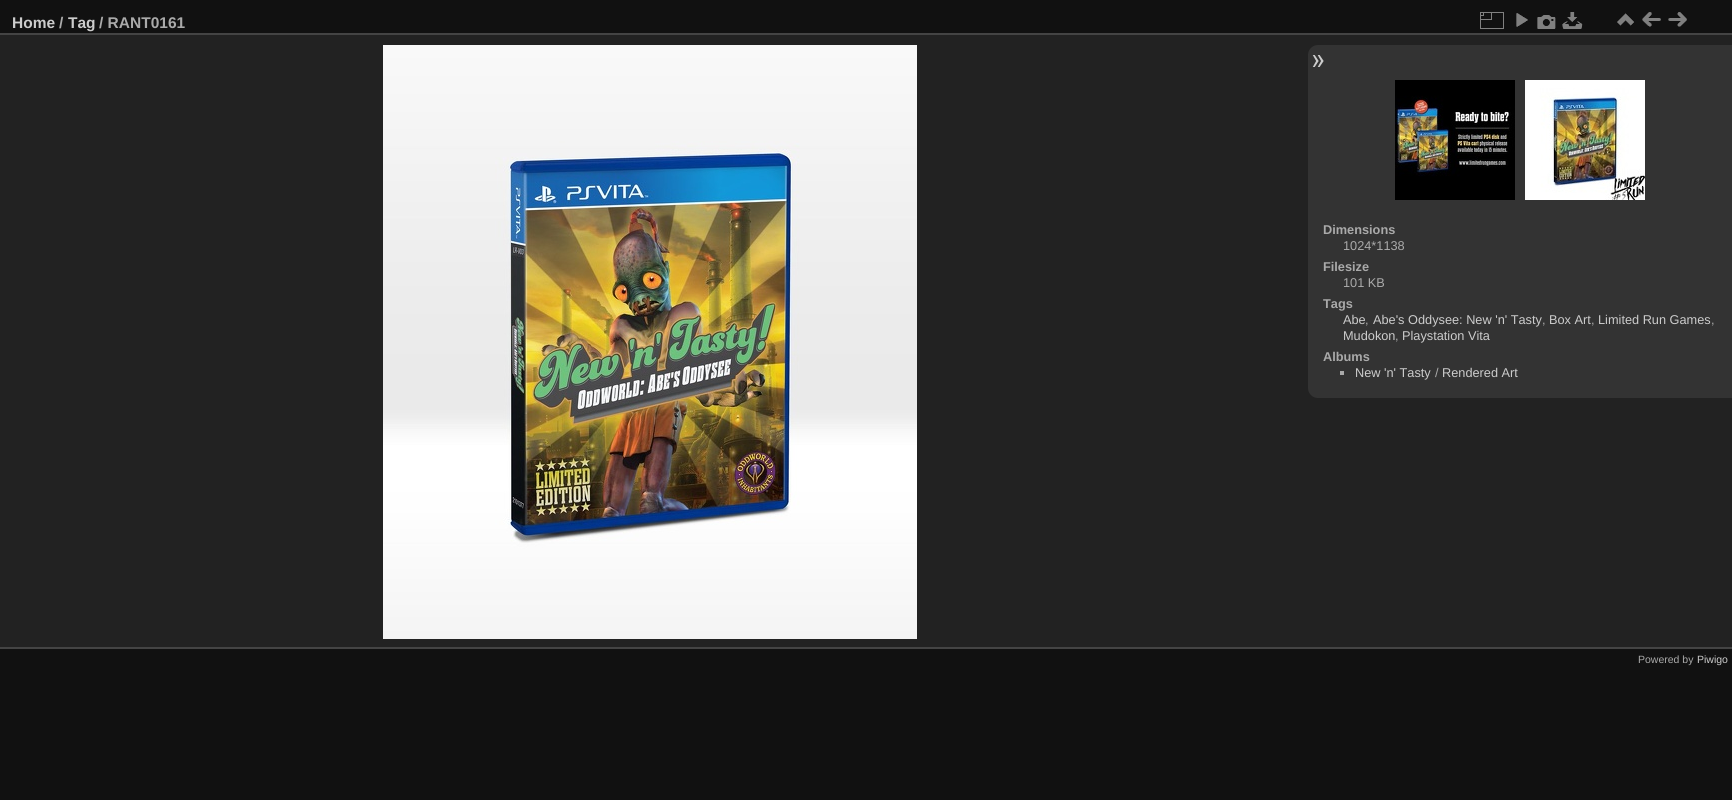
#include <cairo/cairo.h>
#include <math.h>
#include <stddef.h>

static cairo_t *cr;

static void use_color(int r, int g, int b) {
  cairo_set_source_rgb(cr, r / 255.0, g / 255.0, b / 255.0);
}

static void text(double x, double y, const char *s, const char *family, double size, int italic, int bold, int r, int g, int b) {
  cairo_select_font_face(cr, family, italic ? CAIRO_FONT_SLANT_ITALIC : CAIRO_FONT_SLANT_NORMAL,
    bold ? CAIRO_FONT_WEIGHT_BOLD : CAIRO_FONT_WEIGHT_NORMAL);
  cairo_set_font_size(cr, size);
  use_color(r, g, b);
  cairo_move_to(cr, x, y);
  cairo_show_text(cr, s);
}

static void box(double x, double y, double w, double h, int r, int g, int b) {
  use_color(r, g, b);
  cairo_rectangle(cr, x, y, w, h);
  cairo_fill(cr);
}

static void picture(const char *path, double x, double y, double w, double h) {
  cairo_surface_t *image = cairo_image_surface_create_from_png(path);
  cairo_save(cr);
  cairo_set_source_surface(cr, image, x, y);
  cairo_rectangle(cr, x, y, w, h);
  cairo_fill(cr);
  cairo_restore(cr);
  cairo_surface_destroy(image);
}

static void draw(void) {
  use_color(17, 17, 17);
  cairo_paint(cr);
  box(0, 35, 1732, 612, 34, 34, 34);
  box(0, 647, 1732, 2, 68, 68, 68);
  box(0, 33, 1732, 2, 68, 68, 68);
  picture("img_01.png", 1480, 12, 24, 17);
  picture("img_02.png", 1516, 13, 12, 14);
  picture("img_03.png", 1537, 15, 19, 14);
  picture("img_04.png", 1562, 12, 21, 17);
  picture("img_05.png", 1617, 13, 17, 13);
  picture("img_06.png", 1642, 12, 19, 15);
  picture("img_07.png", 1668, 12, 19, 15);
  picture("img_08.png", 383, 45, 534, 594);
  use_color(51, 51, 51);
  cairo_new_path(cr);
  cairo_move_to(cr, 1318, 45);
  cairo_line_to(cr, 1732, 45);
  cairo_line_to(cr, 1732, 398);
  cairo_line_to(cr, 1318, 398);
  cairo_curve_to(cr, 1312.5, 398, 1308, 393.5, 1308, 388);
  cairo_line_to(cr, 1308, 55);
  cairo_curve_to(cr, 1308, 49.5, 1312.5, 45, 1318, 45);
  cairo_close_path(cr);
  cairo_fill(cr);
  picture("img_09.png", 1312, 55, 12, 12);
  picture("img_10.png", 1395, 80, 120, 120);
  picture("img_11.png", 1525, 80, 120, 120);
  box(1340, 371, 4, 4, 170, 170, 170);
  text(12, 28, "Home", "Liberation Sans", 15.5, 0, 1, 204, 204, 204);
  text(59, 28, "/", "Liberation Sans", 15.5, 0, 1, 170, 170, 170);
  text(68, 28, "Tag", "Liberation Sans", 15.5, 0, 1, 204, 204, 204);
  text(99, 28, "/ RANT0161", "Liberation Sans", 15.5, 0, 1, 170, 170, 170);
  text(1323, 234, "Dimensions", "Liberation Sans", 12.75, 0, 1, 170, 170, 170);
  text(1343, 250, "1024*1138", "Liberation Sans", 12.75, 0, 0, 170, 170, 170);
  text(1323, 271, "Filesize", "Liberation Sans", 12.75, 0, 1, 170, 170, 170);
  text(1343, 287, "101 KB", "Liberation Sans", 12.75, 0, 0, 170, 170, 170);
  text(1323, 308, "Tags", "Liberation Sans", 12.75, 0, 1, 170, 170, 170);
  text(1343, 324, "Abe", "Liberation Sans", 12.75, 0, 0, 204, 204, 204);
  text(1365, 324, ",", "Liberation Sans", 12.75, 0, 0, 170, 170, 170);
  text(1373, 324, "Abe's Oddysee: New 'n' Tasty", "Liberation Sans", 12.75, 0, 0, 204, 204, 204);
  text(1542, 324, ",", "Liberation Sans", 12.75, 0, 0, 170, 170, 170);
  text(1549, 324, "Box Art", "Liberation Sans", 12.75, 0, 0, 204, 204, 204);
  text(1591, 324, ",", "Liberation Sans", 12.75, 0, 0, 170, 170, 170);
  text(1598, 324, "Limited Run Games", "Liberation Sans", 12.75, 0, 0, 204, 204, 204);
  text(1711, 324, ",", "Liberation Sans", 12.75, 0, 0, 170, 170, 170);
  text(1343, 340, "Mudokon", "Liberation Sans", 12.75, 0, 0, 204, 204, 204);
  text(1395, 340, ",", "Liberation Sans", 12.75, 0, 0, 170, 170, 170);
  text(1402, 340, "Playstation Vita", "Liberation Sans", 12.75, 0, 0, 204, 204, 204);
  text(1323, 361, "Albums", "Liberation Sans", 12.75, 0, 1, 170, 170, 170);
  text(1355, 377, "New 'n' Tasty", "Liberation Sans", 12.75, 0, 0, 204, 204, 204);
  text(1435, 377, "/", "Liberation Sans", 12.75, 0, 0, 170, 170, 170);
  text(1442, 377, "Rendered Art", "Liberation Sans", 12.75, 0, 0, 204, 204, 204);
  text(1638, 663, "Powered by", "Liberation Sans", 10.5, 0, 0, 170, 170, 170);
  text(1697, 663, "Piwigo", "Liberation Sans", 10.5, 0, 0, 204, 204, 204);
}

int main(void) {
  cairo_surface_t *surface = cairo_image_surface_create(CAIRO_FORMAT_RGB24, 1732, 800);
  cr = cairo_create(surface);
  cairo_font_options_t *options = cairo_font_options_create();
  cairo_font_options_set_hint_metrics(options, CAIRO_HINT_METRICS_OFF);
  cairo_font_options_set_hint_style(options, CAIRO_HINT_STYLE_NONE);
  cairo_set_font_options(cr, options);
  cairo_set_miter_limit(cr, 4);
  draw();
  cairo_surface_write_to_png(surface, "out.png");
  cairo_font_options_destroy(options);
  cairo_destroy(cr);
  cairo_surface_destroy(surface);
  return 0;
}
